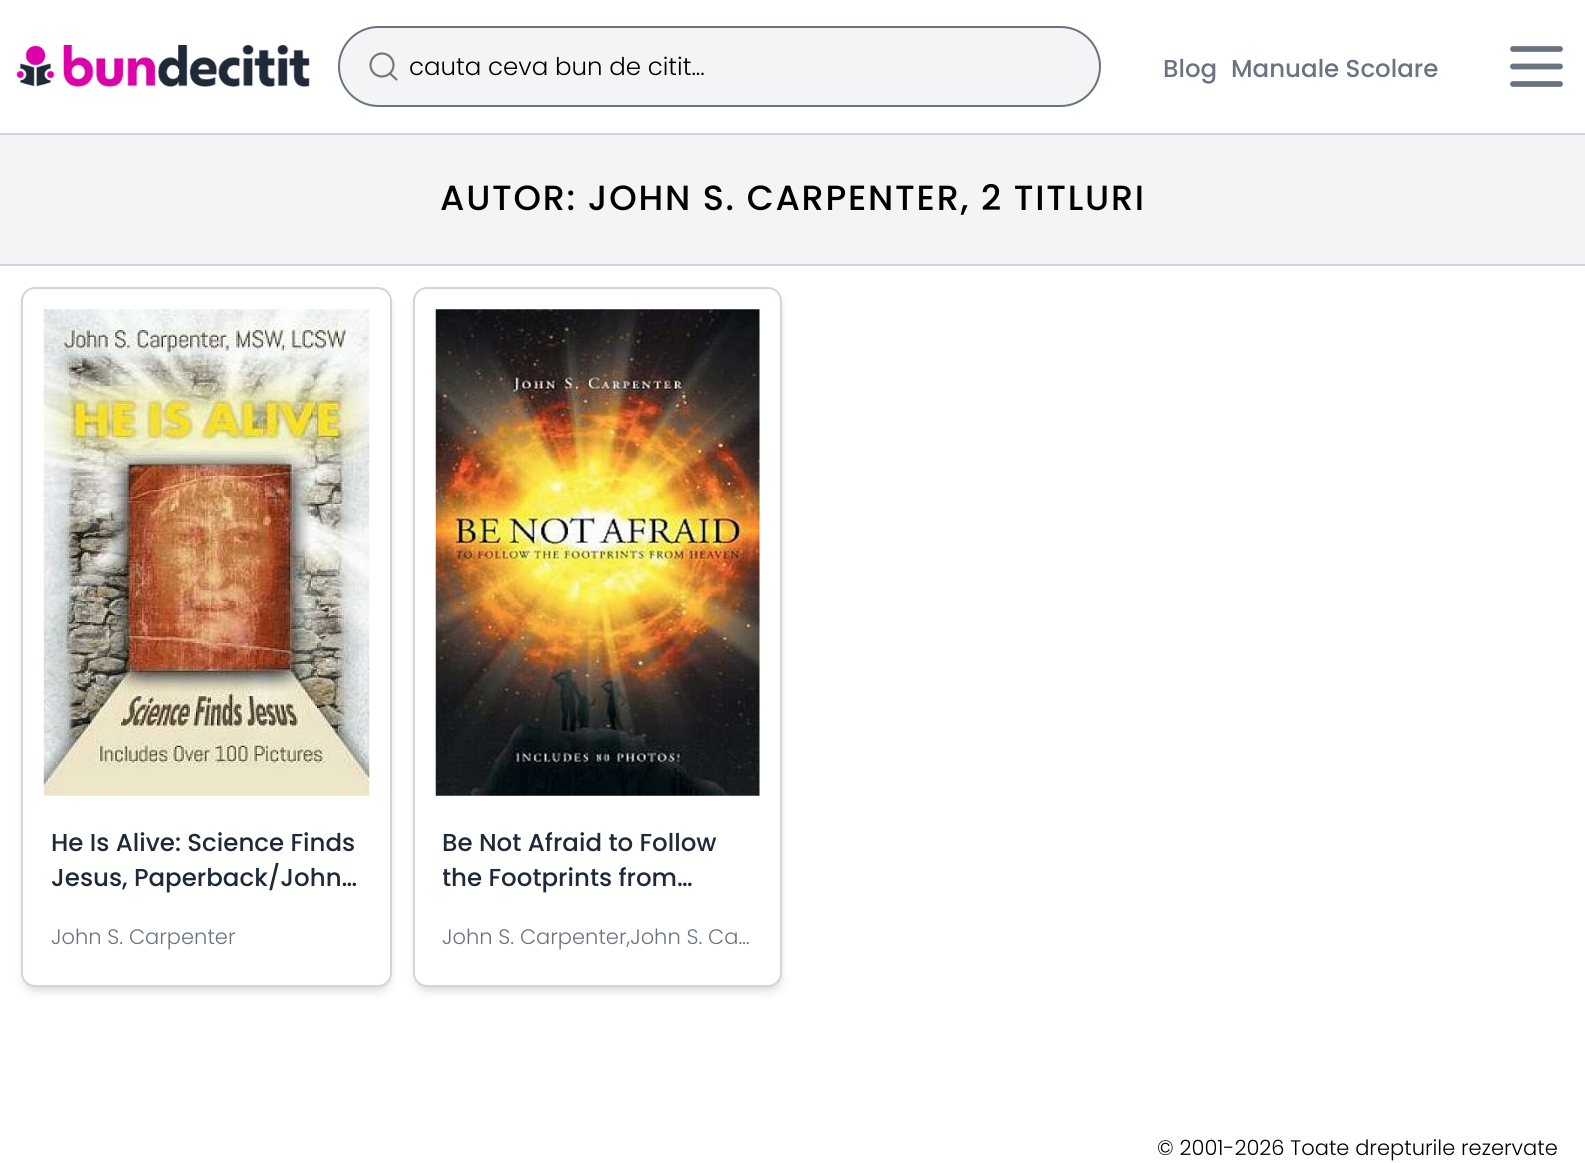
#include <cairo/cairo.h>
#include <math.h>
#include <stddef.h>

static cairo_t *cr;

static void use_color(int r, int g, int b) {
  cairo_set_source_rgb(cr, r / 255.0, g / 255.0, b / 255.0);
}

static void text(double x, double y, const char *s, const char *family, double size, int italic, int bold, int r, int g, int b) {
  cairo_select_font_face(cr, family, italic ? CAIRO_FONT_SLANT_ITALIC : CAIRO_FONT_SLANT_NORMAL,
    bold ? CAIRO_FONT_WEIGHT_BOLD : CAIRO_FONT_WEIGHT_NORMAL);
  cairo_set_font_size(cr, size);
  use_color(r, g, b);
  cairo_move_to(cr, x, y);
  cairo_show_text(cr, s);
}

static void spaced_text(double x, double y, const char *s, double letter, double word) {
  cairo_move_to(cr, x, y);
  while (*s) {
    char ch[5] = {0};
    int n = 0;
    do ch[n++] = *s++; while ((*s & 0xC0) == 0x80);
    cairo_show_text(cr, ch);
    cairo_rel_move_to(cr, letter + word * (*ch == ' '), 0);
  }
}

static void box(double x, double y, double w, double h, int r, int g, int b) {
  use_color(r, g, b);
  cairo_rectangle(cr, x, y, w, h);
  cairo_fill(cr);
}

static void round_rect(double x, double y, double w, double h, double r) {
  cairo_new_sub_path(cr);
  cairo_arc(cr, x + w - r, y + h - r, r, 0, M_PI / 2);
  cairo_arc(cr, x + r, y + h - r, r, M_PI / 2, M_PI);
  cairo_arc(cr, x + r, y + r, r, M_PI, 1.5 * M_PI);
  cairo_arc(cr, x + w - r, y + r, r, 1.5 * M_PI, 2 * M_PI);
  cairo_close_path(cr);
}

static void shadow(double x, double y, double w, double h, double r, double blur, double alpha) {
  cairo_push_group_with_content(cr, CAIRO_CONTENT_ALPHA);
  cairo_set_operator(cr, CAIRO_OPERATOR_SOURCE);
  for (int i = 15; i >= -15 && fmin(w, h) + blur * i / 3 > 0; i -= 2) {
    double e = blur * i / 6;
    cairo_set_source_rgba(cr, 0, 0, 0, alpha * erfc((i - 1) / 8.5) / 2);
    round_rect(x - e, y - e, w + 2 * e, h + 2 * e, fmax(0, fmin(r + e + blur * .6, fmin(w, h) / 2 + e)));
    cairo_fill(cr);
  }
  cairo_pattern_t *soft = cairo_pop_group(cr);
  cairo_mask(cr, soft);
  cairo_pattern_destroy(soft);
}

static void picture(const char *path, double x, double y, double w, double h) {
  cairo_surface_t *image = cairo_image_surface_create_from_png(path);
  cairo_save(cr);
  cairo_set_source_surface(cr, image, x, y);
  cairo_rectangle(cr, x, y, w, h);
  cairo_fill(cr);
  cairo_restore(cr);
  cairo_surface_destroy(image);
}

static void draw(void) {
  use_color(255, 255, 255);
  cairo_paint(cr);
  box(0, 133, 1585, 2, 209, 213, 219);
  picture("img_01.png", 16, 45, 294, 42);
  use_color(243, 244, 246);
  round_rect(338, 26, 763, 81, 40.5);
  cairo_fill(cr);
  cairo_arc(cr, 382, 65, 11.5, 0, 2 * M_PI);
  use_color(119, 119, 119);
  cairo_set_line_width(cr, 2.2);
  cairo_stroke(cr);
  cairo_new_path(cr);
  cairo_move_to(cr, 396.5, 79.5);
  cairo_line_to(cr, 390, 73.5);
  cairo_set_line_cap(cr, CAIRO_LINE_CAP_ROUND);
  cairo_set_line_join(cr, CAIRO_LINE_JOIN_ROUND);
  cairo_stroke(cr);
  round_rect(339, 27, 761, 79, 39.5);
  use_color(107, 114, 128);
  cairo_set_line_width(cr, 2);
  cairo_set_line_cap(cr, CAIRO_LINE_CAP_BUTT);
  cairo_set_line_join(cr, CAIRO_LINE_JOIN_MITER);
  cairo_stroke(cr);
  cairo_new_path(cr);
  cairo_move_to(cr, 1513, 49);
  cairo_line_to(cr, 1560, 49);
  cairo_move_to(cr, 1513, 66.5);
  cairo_line_to(cr, 1560, 66.5);
  cairo_move_to(cr, 1513, 84);
  cairo_line_to(cr, 1560, 84);
  cairo_set_line_width(cr, 5.8);
  cairo_set_line_cap(cr, CAIRO_LINE_CAP_ROUND);
  cairo_set_line_join(cr, CAIRO_LINE_JOIN_ROUND);
  cairo_stroke(cr);
  box(0, 135, 1585, 129, 243, 244, 246);
  box(0, 264, 1585, 2, 209, 213, 219);
  use_color(0, 0, 0);
  shadow(25, 294, 364, 693, 11, 3.5, 0.1);
  shadow(23, 296, 367, 696, 12, 5, 0.1);
  use_color(255, 255, 255);
  round_rect(22, 288, 369, 698, 13);
  cairo_fill_preserve(cr);
  use_color(209, 213, 219);
  cairo_set_line_width(cr, 2);
  cairo_set_line_cap(cr, CAIRO_LINE_CAP_BUTT);
  cairo_set_line_join(cr, CAIRO_LINE_JOIN_MITER);
  cairo_stroke(cr);
  picture("img_02.png", 43, 309, 327, 487);
  use_color(0, 0, 0);
  shadow(417, 294, 362, 693, 11, 3.5, 0.1);
  shadow(415, 296, 366, 696, 12, 5, 0.1);
  use_color(255, 255, 255);
  round_rect(414, 288, 367, 698, 13);
  cairo_fill_preserve(cr);
  use_color(209, 213, 219);
  cairo_stroke(cr);
  picture("img_03.png", 435, 309, 325, 487);
  text(409, 75, "cauta ceva bun de citit...", "Poppins Light", 24.5, 0, 0, 0, 0, 0);
  text(1163, 77, "Blog", "Poppins Medium", 24.5, 0, 0, 107, 114, 128);
  text(1231, 77, "Manuale Scolare", "Poppins Medium", 24.5, 0, 0, 107, 114, 128);
  cairo_set_font_size(cr, 35);
  use_color(0, 0, 0);
  spaced_text(440, 210, "AUTOR: JOHN S. CARPENTER, 2 TITLURI", 1.75, 0);
  text(51, 851, "He Is Alive: Science Finds", "Poppins Medium", 24.5, 0, 0, 31, 41, 55);
  text(51, 886, "Jesus, Paperback/John…", "Poppins Medium", 24.5, 0, 0, 31, 41, 55);
  text(51, 944, "John S. Carpenter", "Poppins Light", 21, 0, 0, 107, 114, 128);
  text(442, 851, "Be Not Afraid to Follow", "Poppins Medium", 24.5, 0, 0, 31, 41, 55);
  cairo_save(cr);
  cairo_rectangle(cr, 443, 824, 310, 70);
  cairo_clip(cr);
  text(442, 886, "the Footprints from…", "Poppins Medium", 24.5, 0, 0, 31, 41, 55);
  cairo_restore(cr);
  text(442, 944, "John S. Carpenter,John S. Ca…", "Poppins Light", 21, 0, 0, 107, 114, 128);
  text(1157, 1155, "© 2001-2026 Toate drepturile rezervate", "Poppins Light", 21, 0, 0, 0, 0, 0);
}

int main(void) {
  cairo_surface_t *surface = cairo_image_surface_create(CAIRO_FORMAT_RGB24, 1585, 1163);
  cr = cairo_create(surface);
  cairo_font_options_t *options = cairo_font_options_create();
  cairo_font_options_set_hint_metrics(options, CAIRO_HINT_METRICS_OFF);
  cairo_font_options_set_hint_style(options, CAIRO_HINT_STYLE_NONE);
  cairo_set_font_options(cr, options);
  cairo_set_miter_limit(cr, 4);
  draw();
  cairo_surface_write_to_png(surface, "out.png");
  cairo_font_options_destroy(options);
  cairo_destroy(cr);
  cairo_surface_destroy(surface);
  return 0;
}
